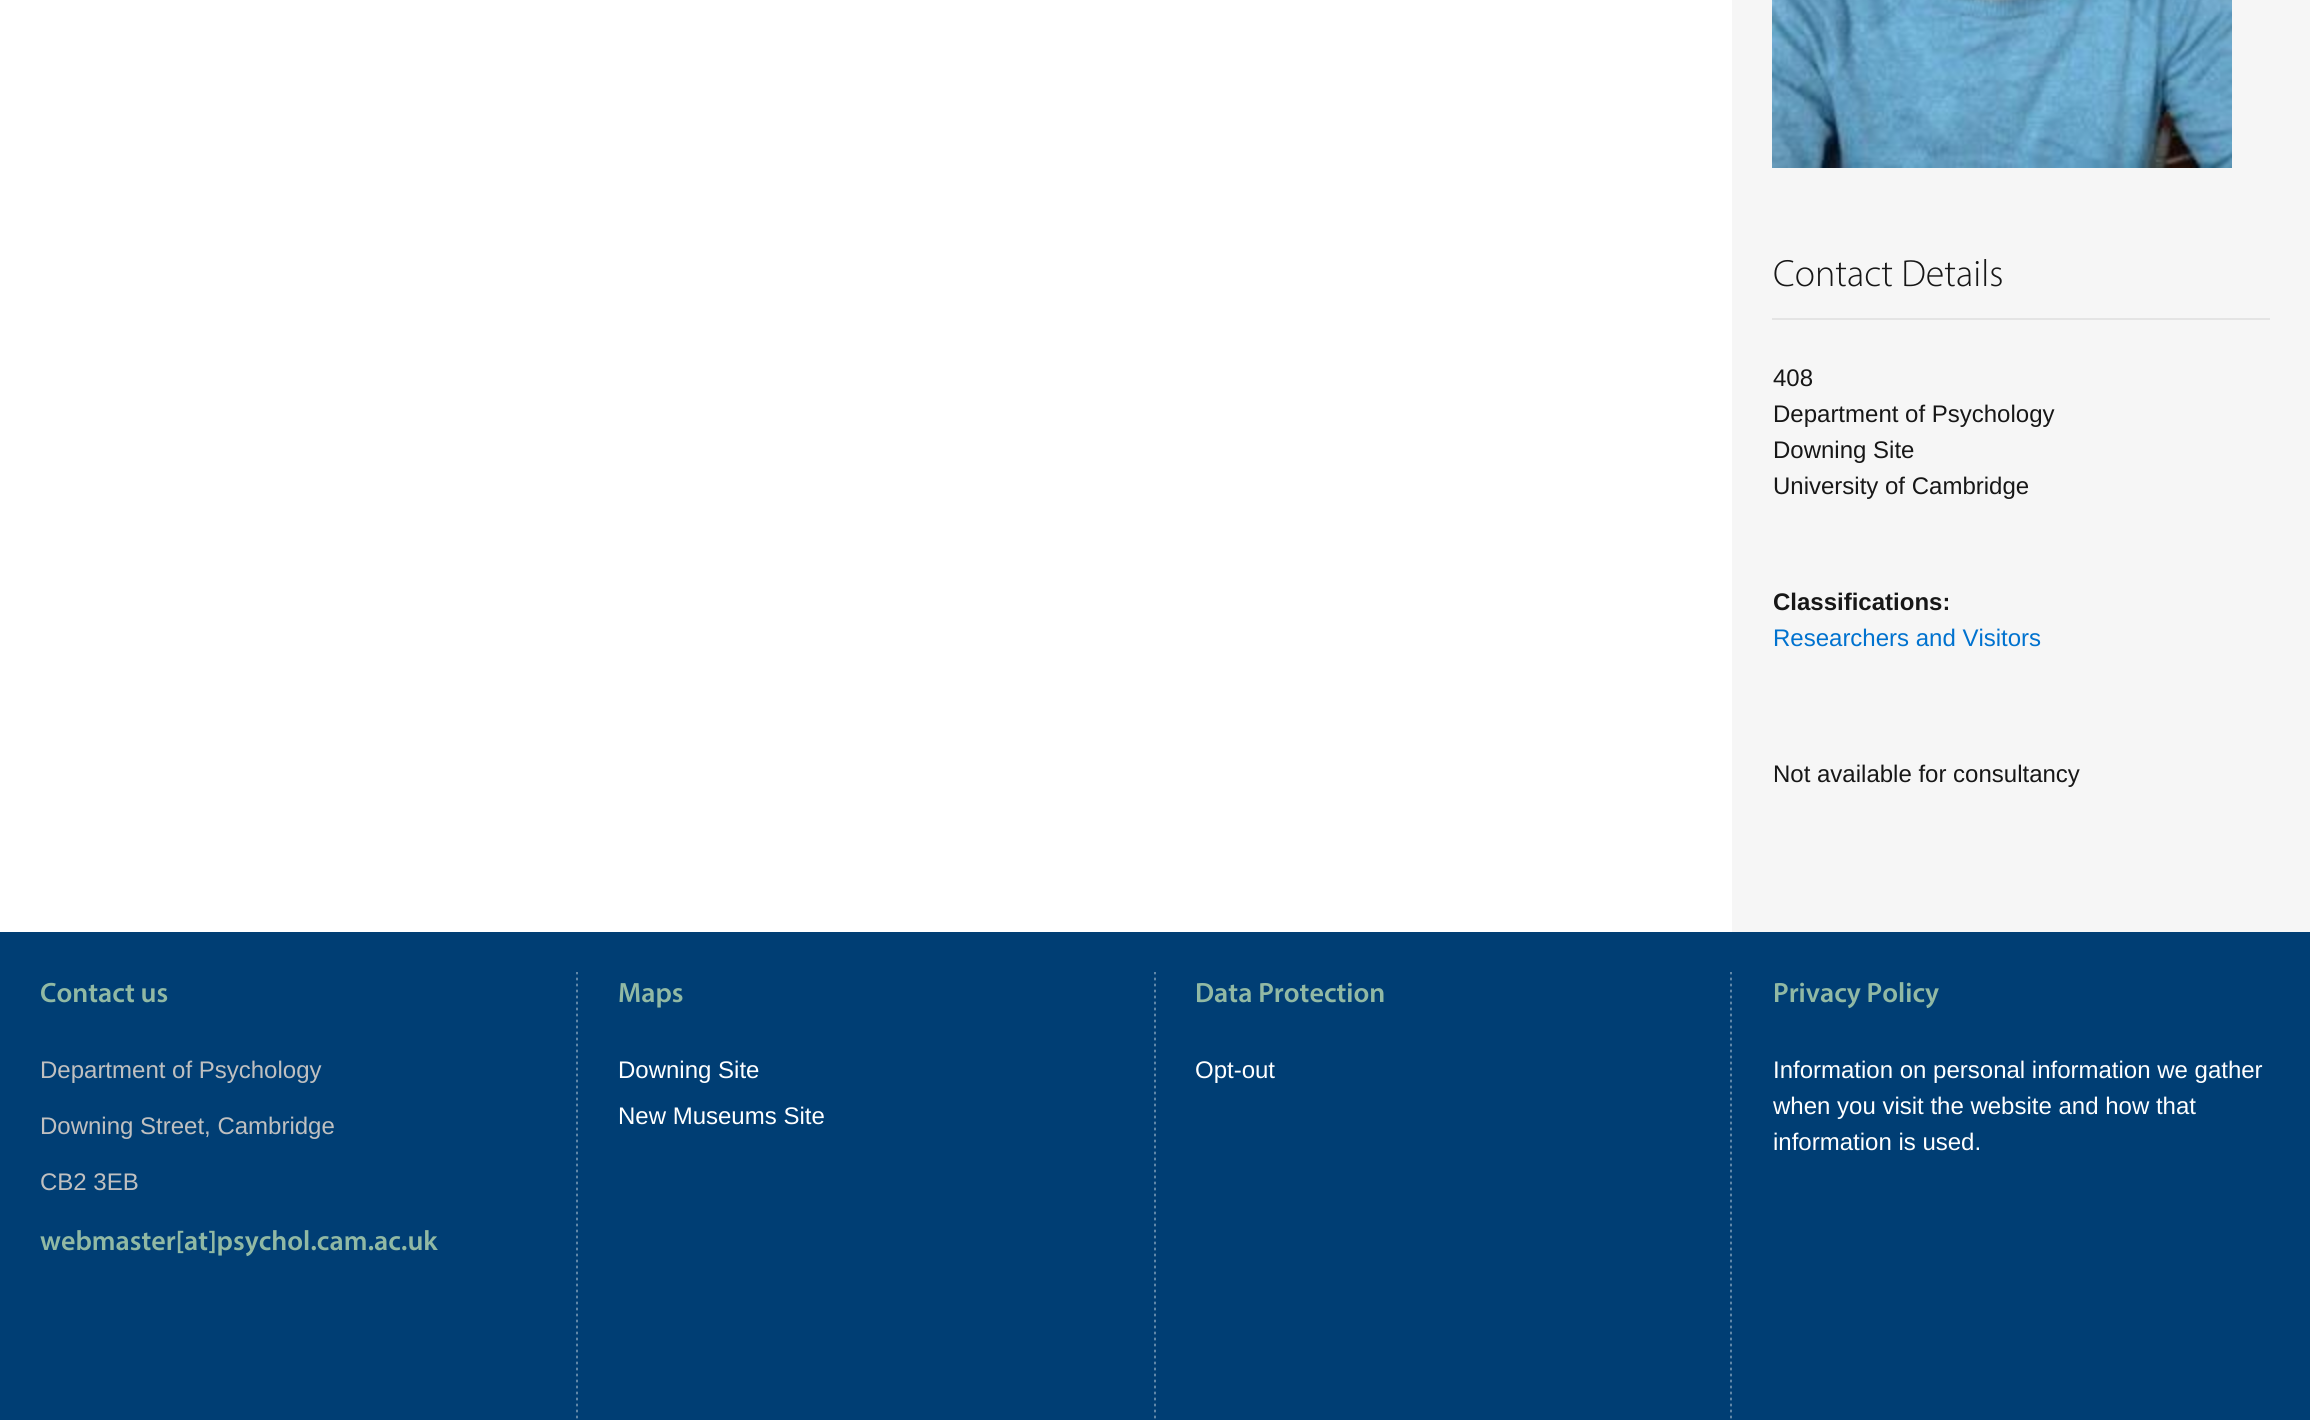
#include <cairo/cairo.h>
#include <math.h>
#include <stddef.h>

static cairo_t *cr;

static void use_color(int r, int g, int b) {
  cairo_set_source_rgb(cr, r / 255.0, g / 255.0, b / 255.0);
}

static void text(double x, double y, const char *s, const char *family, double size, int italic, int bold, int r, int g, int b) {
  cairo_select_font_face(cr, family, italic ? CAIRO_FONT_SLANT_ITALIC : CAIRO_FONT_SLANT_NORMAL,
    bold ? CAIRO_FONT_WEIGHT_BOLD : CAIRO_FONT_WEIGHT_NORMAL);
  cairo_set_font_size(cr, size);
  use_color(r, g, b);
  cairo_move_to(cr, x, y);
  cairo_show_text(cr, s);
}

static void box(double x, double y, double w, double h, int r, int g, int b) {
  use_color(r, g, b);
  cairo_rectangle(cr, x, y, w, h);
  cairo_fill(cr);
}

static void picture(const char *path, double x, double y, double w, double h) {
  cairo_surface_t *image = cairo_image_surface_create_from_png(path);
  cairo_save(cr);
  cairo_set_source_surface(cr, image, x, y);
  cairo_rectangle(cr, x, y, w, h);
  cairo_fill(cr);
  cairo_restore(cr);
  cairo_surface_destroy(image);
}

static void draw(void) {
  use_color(255, 255, 255);
  cairo_paint(cr);
  box(1732, 0, 578, 932, 246, 246, 246);
  picture("img_01.png", 1772, 0, 460, 168);
  box(1772, 318, 498, 2, 228, 228, 228);
  box(0, 932, 2310, 488, 0, 62, 116);
  picture("img_02.png", 576, 972, 2, 447);
  picture("img_02.png", 1154, 972, 2, 447);
  picture("img_02.png", 1730, 972, 2, 447);
  text(1773, 286, "Contact Details", "Myriad Light", 38, 0, 0, 23, 23, 23);
  text(1773, 386, "408", "Liberation Sans", 24, 0, 0, 23, 23, 23);
  text(1773, 422, "Department of Psychology", "Liberation Sans", 24, 0, 0, 23, 23, 23);
  text(1773, 458, "Downing Site", "Liberation Sans", 24, 0, 0, 23, 23, 23);
  text(1773, 494, "University of Cambridge", "Liberation Sans", 24, 0, 0, 23, 23, 23);
  text(1773, 610, "Classifications:", "Liberation Sans", 24, 0, 1, 23, 23, 23);
  text(1773, 646, "Researchers and Visitors", "Liberation Sans", 24, 0, 0, 0, 114, 207);
  text(1773, 782, "Not available for consultancy", "Liberation Sans", 24, 0, 0, 23, 23, 23);
  text(40, 1002, "Contact us", "Myriad SemiBold", 28, 0, 0, 145, 185, 164);
  text(40, 1078, "Department of Psychology", "Liberation Sans", 24, 0, 0, 192, 192, 192);
  text(40, 1134, "Downing Street, Cambridge", "Liberation Sans", 24, 0, 0, 192, 192, 192);
  text(40, 1190, "CB2 3EB", "Liberation Sans", 24, 0, 0, 192, 192, 192);
  text(40, 1250, "webmaster[at]psychol.cam.ac.uk", "Myriad SemiBold", 28, 0, 0, 145, 185, 164);
  text(618, 1002, "Maps", "Myriad SemiBold", 28, 0, 0, 145, 185, 164);
  text(618, 1078, "Downing Site", "Liberation Sans", 24, 0, 0, 255, 255, 255);
  text(618, 1124, "New Museums Site", "Liberation Sans", 24, 0, 0, 255, 255, 255);
  text(1195, 1002, "Data Protection", "Myriad SemiBold", 28, 0, 0, 145, 185, 164);
  text(1195, 1078, "Opt-out", "Liberation Sans", 24, 0, 0, 255, 255, 255);
  text(1773, 1002, "Privacy Policy", "Myriad SemiBold", 28, 0, 0, 145, 185, 164);
  text(1773, 1078, "Information on personal information we gather", "Liberation Sans", 24, 0, 0, 255, 255, 255);
  text(1773, 1114, "when you visit the website and how that", "Liberation Sans", 24, 0, 0, 255, 255, 255);
  text(1773, 1150, "information is used.", "Liberation Sans", 24, 0, 0, 255, 255, 255);
}

int main(void) {
  cairo_surface_t *surface = cairo_image_surface_create(CAIRO_FORMAT_RGB24, 2310, 1420);
  cr = cairo_create(surface);
  cairo_font_options_t *options = cairo_font_options_create();
  cairo_font_options_set_hint_metrics(options, CAIRO_HINT_METRICS_OFF);
  cairo_font_options_set_hint_style(options, CAIRO_HINT_STYLE_NONE);
  cairo_set_font_options(cr, options);
  cairo_set_miter_limit(cr, 4);
  draw();
  cairo_surface_write_to_png(surface, "out.png");
  cairo_font_options_destroy(options);
  cairo_destroy(cr);
  cairo_surface_destroy(surface);
  return 0;
}
